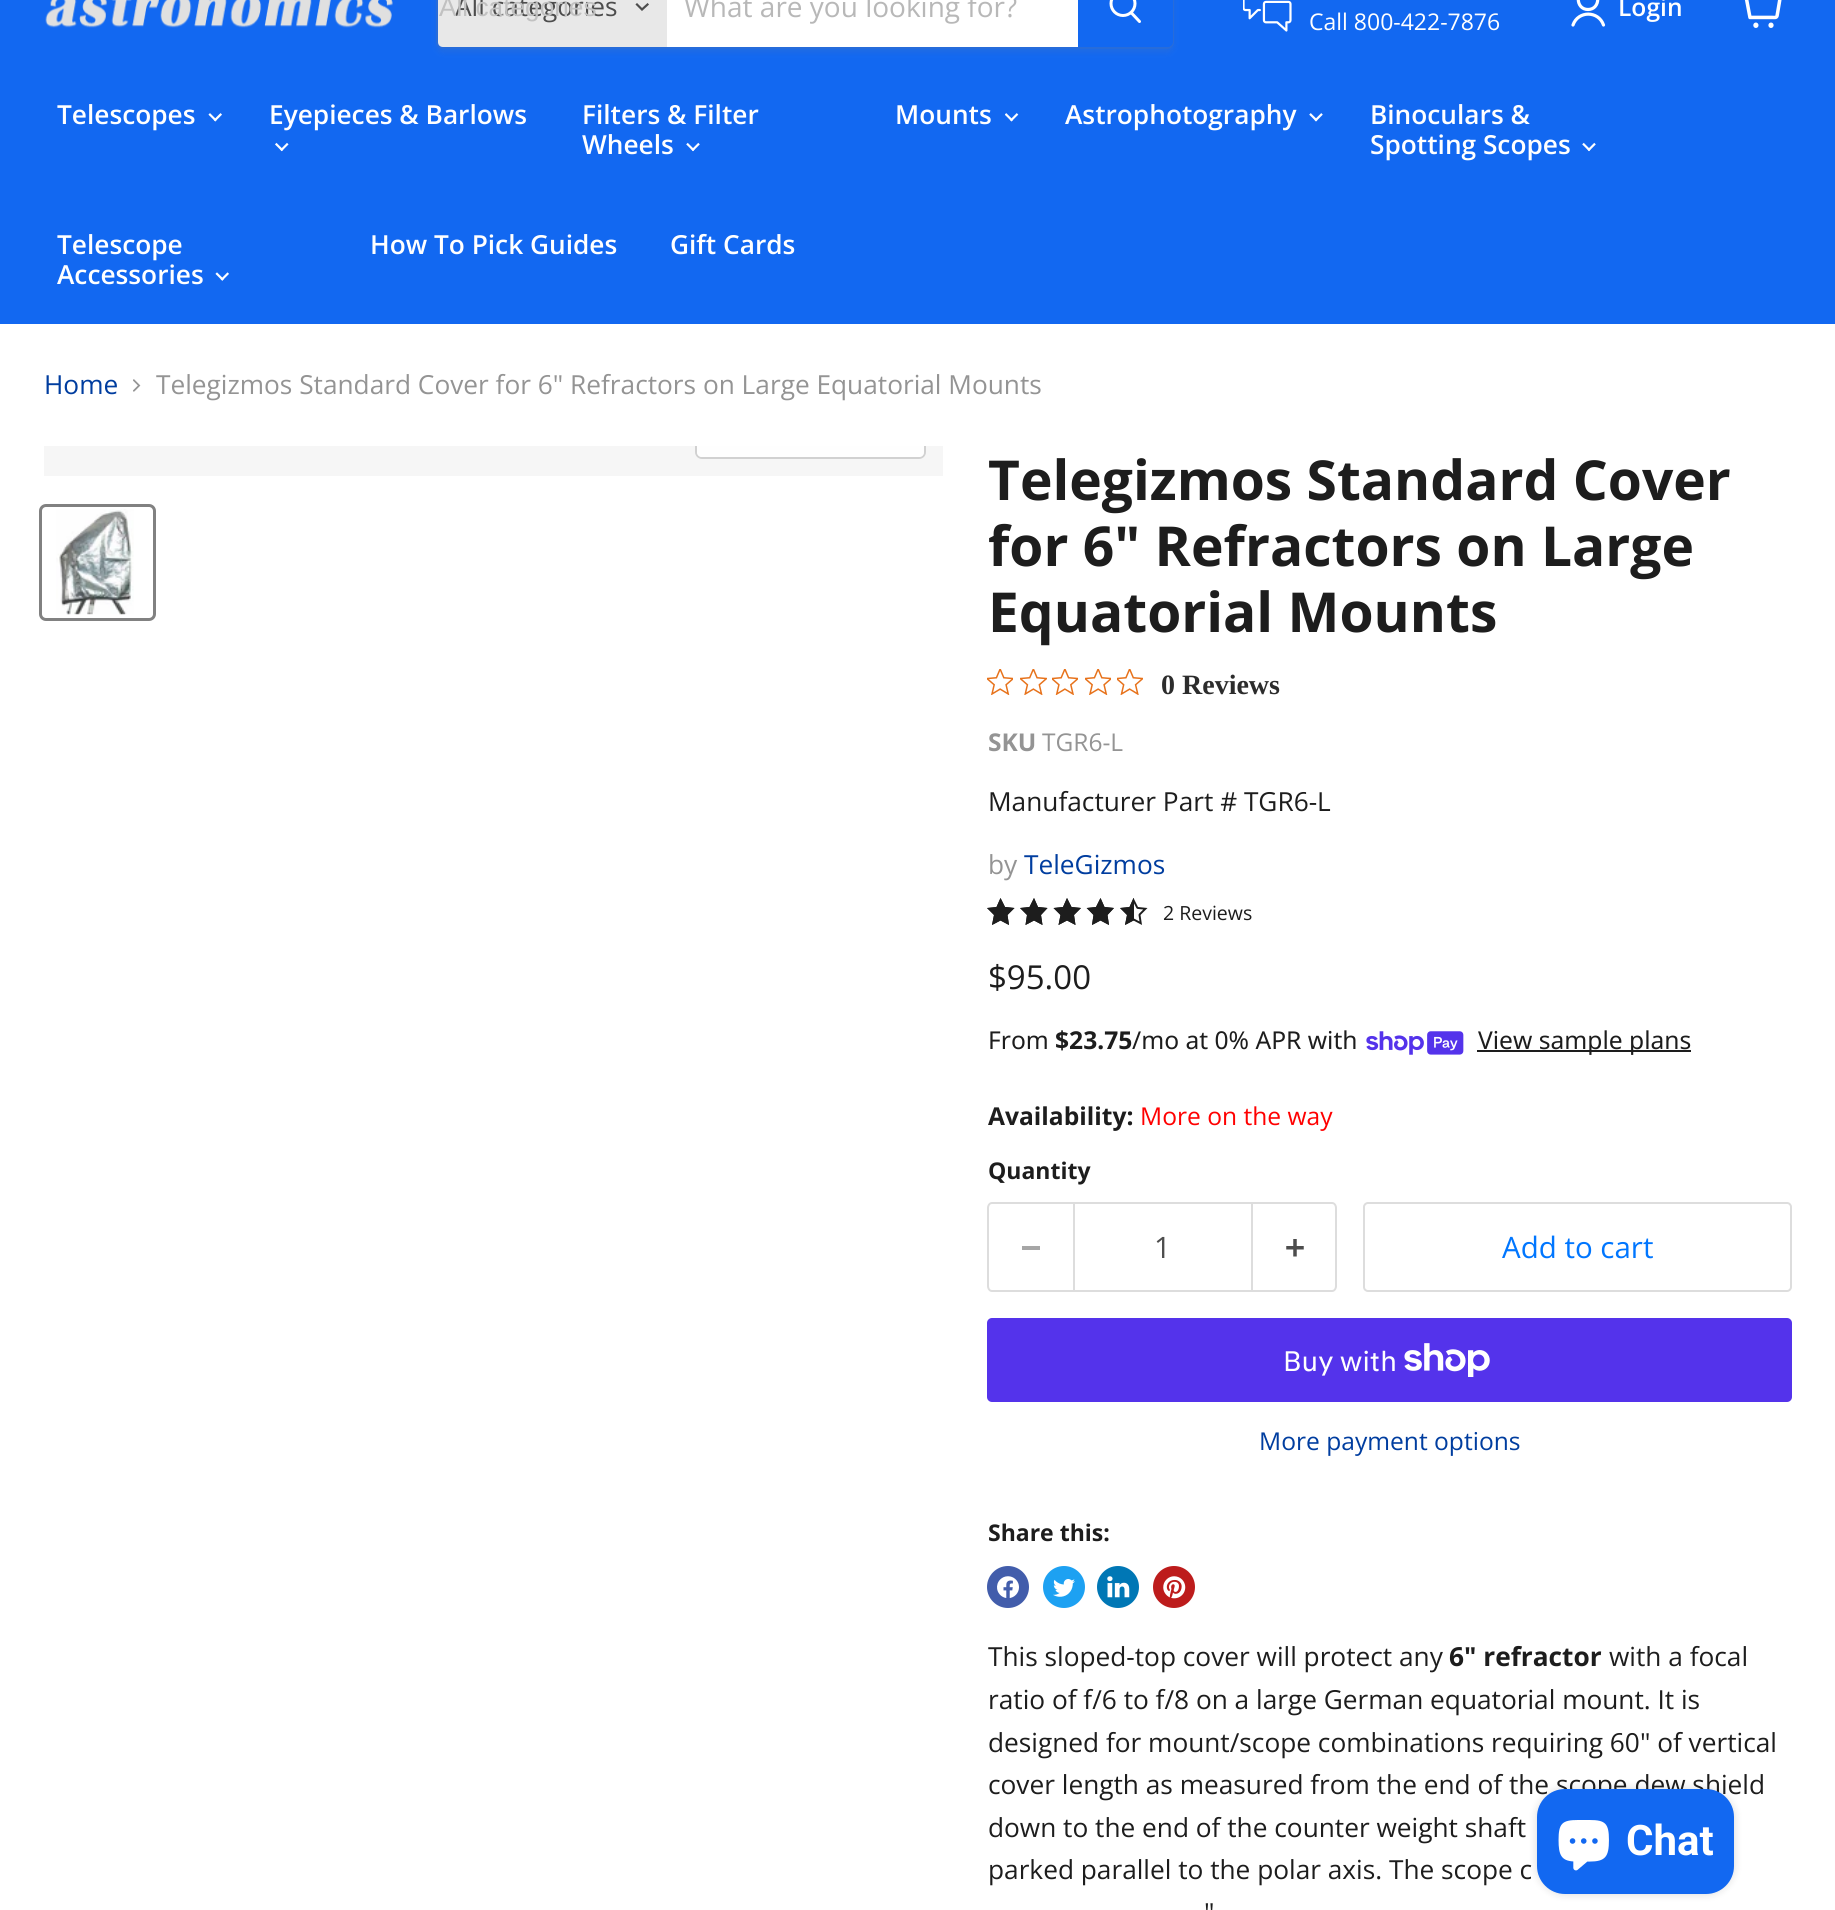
#include <cairo/cairo.h>
#include <math.h>
#include <stddef.h>

static cairo_t *cr;

static void use_color(int r, int g, int b) {
  cairo_set_source_rgb(cr, r / 255.0, g / 255.0, b / 255.0);
}

static void text(double x, double y, const char *s, const char *family, double size, int italic, int bold, int r, int g, int b) {
  cairo_select_font_face(cr, family, italic ? CAIRO_FONT_SLANT_ITALIC : CAIRO_FONT_SLANT_NORMAL,
    bold ? CAIRO_FONT_WEIGHT_BOLD : CAIRO_FONT_WEIGHT_NORMAL);
  cairo_set_font_size(cr, size);
  use_color(r, g, b);
  cairo_move_to(cr, x, y);
  cairo_show_text(cr, s);
}

static void box(double x, double y, double w, double h, int r, int g, int b) {
  use_color(r, g, b);
  cairo_rectangle(cr, x, y, w, h);
  cairo_fill(cr);
}

static void round_rect(double x, double y, double w, double h, double r) {
  cairo_new_sub_path(cr);
  cairo_arc(cr, x + w - r, y + h - r, r, 0, M_PI / 2);
  cairo_arc(cr, x + r, y + h - r, r, M_PI / 2, M_PI);
  cairo_arc(cr, x + r, y + r, r, M_PI, 1.5 * M_PI);
  cairo_arc(cr, x + w - r, y + r, r, 1.5 * M_PI, 2 * M_PI);
  cairo_close_path(cr);
}

static void shadow(double x, double y, double w, double h, double r, double blur, double alpha) {
  cairo_push_group_with_content(cr, CAIRO_CONTENT_ALPHA);
  cairo_set_operator(cr, CAIRO_OPERATOR_SOURCE);
  for (int i = 15; i >= -15 && fmin(w, h) + blur * i / 3 > 0; i -= 2) {
    double e = blur * i / 6;
    cairo_set_source_rgba(cr, 0, 0, 0, alpha * erfc((i - 1) / 8.5) / 2);
    round_rect(x - e, y - e, w + 2 * e, h + 2 * e, fmax(0, fmin(r + e + blur * .6, fmin(w, h) / 2 + e)));
    cairo_fill(cr);
  }
  cairo_pattern_t *soft = cairo_pop_group(cr);
  cairo_mask(cr, soft);
  cairo_pattern_destroy(soft);
}

static void picture(const char *path, double x, double y, double w, double h) {
  cairo_surface_t *image = cairo_image_surface_create_from_png(path);
  cairo_save(cr);
  cairo_set_source_surface(cr, image, x, y);
  cairo_rectangle(cr, x, y, w, h);
  cairo_fill(cr);
  cairo_restore(cr);
  cairo_surface_destroy(image);
}

static void draw(void) {
  use_color(255, 255, 255);
  cairo_paint(cr);
  box(0, 0, 1835, 324, 18, 104, 241);
  picture("img_01.png", 45, 0, 348, 28);
  cairo_save(cr);
  cairo_set_fill_rule(cr, CAIRO_FILL_RULE_EVEN_ODD);
  cairo_new_path(cr);
  cairo_move_to(cr, 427, 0);
  cairo_line_to(cr, 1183, 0);
  cairo_line_to(cr, 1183, 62);
  cairo_line_to(cr, 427, 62);
  cairo_close_path(cr);
  cairo_move_to(cr, 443, -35);
  cairo_line_to(cr, 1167, -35);
  cairo_curve_to(cr, 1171, -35, 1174, -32, 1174, -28);
  cairo_line_to(cr, 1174, 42);
  cairo_curve_to(cr, 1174, 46, 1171, 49, 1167, 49);
  cairo_line_to(cr, 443, 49);
  cairo_curve_to(cr, 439, 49, 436, 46, 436, 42);
  cairo_line_to(cr, 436, -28);
  cairo_curve_to(cr, 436, -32, 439, -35, 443, -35);
  cairo_close_path(cr);
  cairo_clip(cr);
  use_color(128, 128, 128);
  shadow(436, -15, 738, 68, 7, 2.5, 0.11);
  cairo_restore(cr);
  round_rect(437, -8, 736, 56, 6);
  cairo_set_source_rgba(cr, 0.502, 0.502, 0.502, 0.2);
  cairo_stroke(cr);
  use_color(232, 232, 232);
  cairo_new_path(cr);
  cairo_move_to(cr, 443, -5);
  cairo_line_to(cr, 667, -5);
  cairo_line_to(cr, 667, 47);
  cairo_line_to(cr, 443, 47);
  cairo_curve_to(cr, 440, 47, 438, 45, 438, 42);
  cairo_line_to(cr, 438, 0);
  cairo_curve_to(cr, 438, -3, 440, -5, 443, -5);
  cairo_close_path(cr);
  cairo_fill(cr);
  cairo_new_path(cr);
  cairo_move_to(cr, 642, 9.5);
  cairo_line_to(cr, 647.5, 4.5);
  cairo_move_to(cr, 642, 9.5);
  cairo_line_to(cr, 637, 4.5);
  use_color(77, 77, 77);
  cairo_set_line_width(cr, 2.2);
  cairo_set_line_cap(cr, CAIRO_LINE_CAP_SQUARE);
  cairo_stroke(cr);
  box(667, 0, 411, 47, 255, 255, 255);
  use_color(18, 104, 241);
  cairo_new_path(cr);
  cairo_move_to(cr, 1079, -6);
  cairo_line_to(cr, 1168, -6);
  cairo_curve_to(cr, 1170, -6, 1172, -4, 1172, -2);
  cairo_line_to(cr, 1172, 42);
  cairo_curve_to(cr, 1172, 44, 1170, 46, 1168, 46);
  cairo_line_to(cr, 1079, 46);
  cairo_close_path(cr);
  cairo_fill_preserve(cr);
  cairo_set_line_width(cr, 2);
  cairo_set_line_cap(cr, CAIRO_LINE_CAP_BUTT);
  cairo_stroke(cr);
  cairo_new_path(cr);
  cairo_move_to(cr, 1139.5, 21.5);
  cairo_line_to(cr, 1131.5, 13);
  use_color(255, 255, 255);
  cairo_set_line_width(cr, 3);
  cairo_set_line_cap(cr, CAIRO_LINE_CAP_ROUND);
  cairo_stroke(cr);
  cairo_arc(cr, 1123, 3.5, 12, 0, 2 * M_PI);
  cairo_set_line_cap(cr, CAIRO_LINE_CAP_BUTT);
  cairo_stroke(cr);
  picture("img_02.png", 1243, 0, 49, 32);
  cairo_new_path(cr);
  cairo_move_to(cr, 1588, 9.5);
  cairo_curve_to(cr, 1601, 9.5, 1601, -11, 1588, -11);
  cairo_curve_to(cr, 1575, -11, 1575, 9.5, 1588, 9.5);
  cairo_close_path(cr);
  cairo_move_to(cr, 1603.5, 25);
  cairo_curve_to(cr, 1598.5, 10.5, 1578, 10.5, 1573, 25);
  cairo_set_line_width(cr, 3.2);
  cairo_set_line_cap(cr, CAIRO_LINE_CAP_ROUND);
  cairo_set_line_join(cr, CAIRO_LINE_JOIN_ROUND);
  cairo_stroke(cr);
  picture("img_03.png", 1744, 0, 38, 28);
  picture("img_04.png", 208, 113, 14, 9);
  picture("img_05.png", 275, 142, 14, 10);
  picture("img_06.png", 686, 142, 14, 10);
  picture("img_07.png", 1005, 113, 14, 9);
  picture("img_08.png", 1309, 113, 14, 9);
  picture("img_06.png", 1582, 142, 14, 10);
  picture("img_09.png", 215, 272, 14, 9);
  picture("img_10.png", 133, 379, 8, 13);
  box(44, 446, 899, 30, 246, 246, 246);
  cairo_save(cr);
  cairo_rectangle(cr, 44, 446, 899, 30);
  cairo_clip(cr);
  round_rect(696, 409, 229, 49, 6);
  use_color(209, 209, 209);
  cairo_set_line_width(cr, 2);
  cairo_set_line_cap(cr, CAIRO_LINE_CAP_BUTT);
  cairo_set_line_join(cr, CAIRO_LINE_JOIN_MITER);
  cairo_stroke(cr);
  cairo_restore(cr);
  cairo_set_source_rgba(cr, 1, 1, 1, 0.9);
  cairo_new_path(cr);
  cairo_move_to(cr, 697, 446);
  cairo_line_to(cr, 924, 446);
  cairo_line_to(cr, 924, 452);
  cairo_curve_to(cr, 924, 455, 922, 457, 919, 457);
  cairo_line_to(cr, 702, 457);
  cairo_curve_to(cr, 699, 457, 697, 455, 697, 452);
  cairo_close_path(cr);
  cairo_fill(cr);
  round_rect(40.5, 505.5, 114, 114, 5.5);
  use_color(129, 129, 129);
  cairo_set_line_width(cr, 3);
  cairo_set_line_cap(cr, CAIRO_LINE_CAP_BUTT);
  cairo_set_line_join(cr, CAIRO_LINE_JOIN_MITER);
  cairo_stroke(cr);
  picture("img_11.png", 56, 509, 78, 106);
  picture("img_12.png", 987, 669, 26, 26);
  picture("img_13.png", 1020, 669, 27, 26);
  picture("img_14.png", 1052, 669, 26, 26);
  picture("img_12.png", 1085, 669, 26, 26);
  picture("img_15.png", 1117, 669, 26, 26);
  use_color(29, 29, 29);
  cairo_new_path(cr);
  cairo_move_to(cr, 1000.5, 898);
  cairo_line_to(cr, 996.5, 907);
  cairo_line_to(cr, 987, 908);
  cairo_line_to(cr, 994, 915);
  cairo_line_to(cr, 992, 925);
  cairo_line_to(cr, 1000.5, 920.5);
  cairo_line_to(cr, 1009, 925);
  cairo_line_to(cr, 1007.5, 915);
  cairo_line_to(cr, 1014.5, 908);
  cairo_line_to(cr, 1005, 907);
  cairo_close_path(cr);
  cairo_fill(cr);
  cairo_save(cr);
  cairo_new_path(cr);
  cairo_move_to(cr, 1000.5, 898);
  cairo_line_to(cr, 1005, 907);
  cairo_line_to(cr, 1014.5, 908);
  cairo_line_to(cr, 1007.5, 915);
  cairo_line_to(cr, 1009, 925);
  cairo_line_to(cr, 1000.5, 920.5);
  cairo_line_to(cr, 992, 925);
  cairo_line_to(cr, 994, 915);
  cairo_line_to(cr, 987, 908);
  cairo_line_to(cr, 996.5, 907);
  cairo_close_path(cr);
  cairo_clip(cr);
  cairo_new_path(cr);
  cairo_move_to(cr, 1000.5, 898);
  cairo_line_to(cr, 1005, 907);
  cairo_line_to(cr, 1014.5, 908);
  cairo_line_to(cr, 1007.5, 915);
  cairo_line_to(cr, 1009, 925);
  cairo_line_to(cr, 1000.5, 920.5);
  cairo_line_to(cr, 992, 925);
  cairo_line_to(cr, 994, 915);
  cairo_line_to(cr, 987, 908);
  cairo_line_to(cr, 996.5, 907);
  cairo_close_path(cr);
  cairo_set_line_width(cr, 3.9);
  cairo_set_line_cap(cr, CAIRO_LINE_CAP_ROUND);
  cairo_set_line_join(cr, CAIRO_LINE_JOIN_ROUND);
  cairo_stroke(cr);
  cairo_restore(cr);
  cairo_new_path(cr);
  cairo_move_to(cr, 1034, 898);
  cairo_line_to(cr, 1029.5, 907);
  cairo_line_to(cr, 1020, 908);
  cairo_line_to(cr, 1027, 915);
  cairo_line_to(cr, 1025.5, 925);
  cairo_line_to(cr, 1034, 920.5);
  cairo_line_to(cr, 1042.5, 925);
  cairo_line_to(cr, 1041, 915);
  cairo_line_to(cr, 1047.5, 908);
  cairo_line_to(cr, 1038, 907);
  cairo_close_path(cr);
  cairo_fill(cr);
  cairo_save(cr);
  cairo_new_path(cr);
  cairo_move_to(cr, 1034, 898);
  cairo_line_to(cr, 1038, 907);
  cairo_line_to(cr, 1047.5, 908);
  cairo_line_to(cr, 1041, 915);
  cairo_line_to(cr, 1042.5, 925);
  cairo_line_to(cr, 1034, 920.5);
  cairo_line_to(cr, 1025.5, 925);
  cairo_line_to(cr, 1027, 915);
  cairo_line_to(cr, 1020, 908);
  cairo_line_to(cr, 1029.5, 907);
  cairo_close_path(cr);
  cairo_clip(cr);
  cairo_new_path(cr);
  cairo_move_to(cr, 1034, 898);
  cairo_line_to(cr, 1038, 907);
  cairo_line_to(cr, 1047.5, 908);
  cairo_line_to(cr, 1041, 915);
  cairo_line_to(cr, 1042.5, 925);
  cairo_line_to(cr, 1034, 920.5);
  cairo_line_to(cr, 1025.5, 925);
  cairo_line_to(cr, 1027, 915);
  cairo_line_to(cr, 1020, 908);
  cairo_line_to(cr, 1029.5, 907);
  cairo_close_path(cr);
  cairo_set_line_width(cr, 3.9);
  cairo_set_line_cap(cr, CAIRO_LINE_CAP_ROUND);
  cairo_set_line_join(cr, CAIRO_LINE_JOIN_ROUND);
  cairo_stroke(cr);
  cairo_restore(cr);
  cairo_new_path(cr);
  cairo_move_to(cr, 1067, 898);
  cairo_line_to(cr, 1063, 907);
  cairo_line_to(cr, 1053.5, 908);
  cairo_line_to(cr, 1060.5, 915);
  cairo_line_to(cr, 1058.5, 925);
  cairo_line_to(cr, 1067, 920.5);
  cairo_line_to(cr, 1075.5, 925);
  cairo_line_to(cr, 1074, 915);
  cairo_line_to(cr, 1081, 908);
  cairo_line_to(cr, 1071.5, 907);
  cairo_close_path(cr);
  cairo_fill(cr);
  cairo_save(cr);
  cairo_new_path(cr);
  cairo_move_to(cr, 1067, 898);
  cairo_line_to(cr, 1071.5, 907);
  cairo_line_to(cr, 1081, 908);
  cairo_line_to(cr, 1074, 915);
  cairo_line_to(cr, 1075.5, 925);
  cairo_line_to(cr, 1067, 920.5);
  cairo_line_to(cr, 1058.5, 925);
  cairo_line_to(cr, 1060.5, 915);
  cairo_line_to(cr, 1053.5, 908);
  cairo_line_to(cr, 1063, 907);
  cairo_close_path(cr);
  cairo_clip(cr);
  cairo_new_path(cr);
  cairo_move_to(cr, 1067, 898);
  cairo_line_to(cr, 1071.5, 907);
  cairo_line_to(cr, 1081, 908);
  cairo_line_to(cr, 1074, 915);
  cairo_line_to(cr, 1075.5, 925);
  cairo_line_to(cr, 1067, 920.5);
  cairo_line_to(cr, 1058.5, 925);
  cairo_line_to(cr, 1060.5, 915);
  cairo_line_to(cr, 1053.5, 908);
  cairo_line_to(cr, 1063, 907);
  cairo_close_path(cr);
  cairo_set_line_width(cr, 3.9);
  cairo_set_line_cap(cr, CAIRO_LINE_CAP_ROUND);
  cairo_set_line_join(cr, CAIRO_LINE_JOIN_ROUND);
  cairo_stroke(cr);
  cairo_restore(cr);
  cairo_new_path(cr);
  cairo_move_to(cr, 1100.5, 898);
  cairo_line_to(cr, 1096, 907);
  cairo_line_to(cr, 1087, 908);
  cairo_line_to(cr, 1093.5, 915);
  cairo_line_to(cr, 1092, 925);
  cairo_line_to(cr, 1100.5, 920.5);
  cairo_line_to(cr, 1109, 925);
  cairo_line_to(cr, 1107.5, 915);
  cairo_line_to(cr, 1114, 908);
  cairo_line_to(cr, 1104.5, 907);
  cairo_close_path(cr);
  cairo_fill(cr);
  cairo_save(cr);
  cairo_new_path(cr);
  cairo_move_to(cr, 1100.5, 898);
  cairo_line_to(cr, 1104.5, 907);
  cairo_line_to(cr, 1114, 908);
  cairo_line_to(cr, 1107.5, 915);
  cairo_line_to(cr, 1109, 925);
  cairo_line_to(cr, 1100.5, 920.5);
  cairo_line_to(cr, 1092, 925);
  cairo_line_to(cr, 1093.5, 915);
  cairo_line_to(cr, 1086.5, 908);
  cairo_line_to(cr, 1096, 907);
  cairo_close_path(cr);
  cairo_clip(cr);
  cairo_new_path(cr);
  cairo_move_to(cr, 1100.5, 898);
  cairo_line_to(cr, 1104.5, 907);
  cairo_line_to(cr, 1114, 908);
  cairo_line_to(cr, 1107.5, 915);
  cairo_line_to(cr, 1109, 925);
  cairo_line_to(cr, 1100.5, 920.5);
  cairo_line_to(cr, 1092, 925);
  cairo_line_to(cr, 1093.5, 915);
  cairo_line_to(cr, 1086.5, 908);
  cairo_line_to(cr, 1096, 907);
  cairo_close_path(cr);
  cairo_set_line_width(cr, 3.9);
  cairo_set_line_cap(cr, CAIRO_LINE_CAP_ROUND);
  cairo_set_line_join(cr, CAIRO_LINE_JOIN_ROUND);
  cairo_stroke(cr);
  cairo_restore(cr);
  cairo_new_path(cr);
  cairo_move_to(cr, 1133.5, 898);
  cairo_line_to(cr, 1134, 898.5);
  cairo_line_to(cr, 1134, 920.5);
  cairo_line_to(cr, 1133.5, 920.5);
  cairo_line_to(cr, 1125, 925);
  cairo_line_to(cr, 1127, 915);
  cairo_line_to(cr, 1120, 908);
  cairo_line_to(cr, 1129.5, 907);
  cairo_close_path(cr);
  cairo_fill(cr);
  cairo_save(cr);
  cairo_new_path(cr);
  cairo_move_to(cr, 1133.5, 898);
  cairo_line_to(cr, 1138, 907);
  cairo_line_to(cr, 1147.5, 908);
  cairo_line_to(cr, 1140.5, 915);
  cairo_line_to(cr, 1142, 925);
  cairo_line_to(cr, 1133.5, 920.5);
  cairo_line_to(cr, 1125, 925);
  cairo_line_to(cr, 1127, 915);
  cairo_line_to(cr, 1120, 908);
  cairo_line_to(cr, 1129.5, 907);
  cairo_close_path(cr);
  cairo_clip(cr);
  cairo_new_path(cr);
  cairo_move_to(cr, 1133.5, 898);
  cairo_line_to(cr, 1138, 907);
  cairo_line_to(cr, 1147.5, 908);
  cairo_line_to(cr, 1140.5, 915);
  cairo_line_to(cr, 1142, 925);
  cairo_line_to(cr, 1133.5, 920.5);
  cairo_line_to(cr, 1125, 925);
  cairo_line_to(cr, 1127, 915);
  cairo_line_to(cr, 1120, 908);
  cairo_line_to(cr, 1129.5, 907);
  cairo_close_path(cr);
  cairo_set_line_width(cr, 3.9);
  cairo_set_line_cap(cr, CAIRO_LINE_CAP_ROUND);
  cairo_set_line_join(cr, CAIRO_LINE_JOIN_ROUND);
  cairo_stroke(cr);
  cairo_restore(cr);
  picture("img_16.png", 1366, 1031, 98, 24);
  box(1477, 1050, 214, 2, 29, 29, 29);
  use_color(221, 221, 221);
  cairo_set_fill_rule(cr, CAIRO_FILL_RULE_EVEN_ODD);
  cairo_new_path(cr);
  cairo_move_to(cr, 992, 1202);
  cairo_line_to(cr, 1073, 1202);
  cairo_line_to(cr, 1073, 1292);
  cairo_line_to(cr, 992, 1292);
  cairo_curve_to(cr, 989, 1292, 987, 1289, 987, 1286);
  cairo_line_to(cr, 987, 1208);
  cairo_curve_to(cr, 987, 1205, 989, 1202, 992, 1202);
  cairo_close_path(cr);
  cairo_move_to(cr, 992, 1204);
  cairo_line_to(cr, 1073, 1204);
  cairo_line_to(cr, 1073, 1290);
  cairo_line_to(cr, 992, 1290);
  cairo_curve_to(cr, 990, 1290, 989, 1288, 989, 1286);
  cairo_line_to(cr, 989, 1208);
  cairo_curve_to(cr, 989, 1206, 990, 1204, 992, 1204);
  cairo_close_path(cr);
  cairo_fill(cr);
  box(1022, 1246, 18, 4, 166, 166, 166);
  cairo_rectangle(cr, 1074, 1203, 178, 88);
  use_color(221, 221, 221);
  cairo_set_line_width(cr, 2);
  cairo_stroke(cr);
  cairo_new_path(cr);
  cairo_move_to(cr, 1253, 1202);
  cairo_line_to(cr, 1332, 1202);
  cairo_curve_to(cr, 1335, 1202, 1337, 1205, 1337, 1208);
  cairo_line_to(cr, 1337, 1286);
  cairo_curve_to(cr, 1337, 1289, 1335, 1292, 1332, 1292);
  cairo_line_to(cr, 1253, 1292);
  cairo_close_path(cr);
  cairo_move_to(cr, 1253, 1204);
  cairo_line_to(cr, 1332, 1204);
  cairo_curve_to(cr, 1334, 1204, 1335, 1206, 1335, 1208);
  cairo_line_to(cr, 1335, 1286);
  cairo_curve_to(cr, 1335, 1288, 1334, 1290, 1332, 1290);
  cairo_line_to(cr, 1253, 1290);
  cairo_close_path(cr);
  cairo_fill(cr);
  picture("img_17.png", 1286, 1239, 18, 18);
  round_rect(1364, 1203, 427, 88, 4);
  cairo_stroke(cr);
  use_color(84, 51, 235);
  round_rect(987, 1318, 805, 84, 5);
  cairo_fill(cr);
  picture("img_18.png", 1404, 1343, 86, 34);
  use_color(66, 93, 171);
  cairo_arc(cr, 1008, 1587, 21, 0, 2 * M_PI);
  cairo_fill(cr);
  picture("img_19.png", 997, 1576, 22, 22);
  use_color(29, 161, 242);
  cairo_arc(cr, 1064, 1587, 21, 0, 2 * M_PI);
  cairo_fill(cr);
  picture("img_20.png", 1053, 1579, 22, 18);
  use_color(0, 119, 181);
  cairo_arc(cr, 1118, 1587, 21, 0, 2 * M_PI);
  cairo_fill(cr);
  picture("img_21.png", 1107, 1576, 23, 22);
  use_color(189, 28, 28);
  cairo_arc(cr, 1174, 1587, 21, 0, 2 * M_PI);
  cairo_fill(cr);
  picture("img_22.png", 1163, 1576, 23, 23);
  use_color(0, 0, 0);
  shadow(1537, 1789, 197, 105, 28, 4.5, 0.15);
  text(455, 16, "All categories", "Open Sans", 26.25, 0, 0, 77, 77, 77);
  text(439, 16, "All categories", "Liberation Sans", 26.25, 0, 0, 193, 193, 193);
  text(684, 17, "What are you looking for?", "Open Sans", 28, 0, 0, 184, 184, 184);
  text(1309, 30, "Call 800-422-7876", "Open Sans", 23, 0, 0, 255, 255, 255);
  text(1618, 16, "Login", "Open Sans SemiBold", 24.6, 0, 0, 255, 255, 255);
  text(57, 124, "Telescopes", "Open Sans SemiBold", 26.25, 0, 0, 255, 255, 255);
  text(269, 124, "Eyepieces & Barlows", "Open Sans SemiBold", 26.25, 0, 0, 255, 255, 255);
  text(582, 124, "Filters & Filter", "Open Sans SemiBold", 26.25, 0, 0, 255, 255, 255);
  text(582, 154, "Wheels", "Open Sans SemiBold", 26.25, 0, 0, 255, 255, 255);
  text(895, 124, "Mounts", "Open Sans SemiBold", 26.25, 0, 0, 255, 255, 255);
  text(1065, 124, "Astrophotography", "Open Sans SemiBold", 26.25, 0, 0, 255, 255, 255);
  text(1370, 124, "Binoculars &", "Open Sans SemiBold", 26.25, 0, 0, 255, 255, 255);
  text(1370, 154, "Spotting Scopes", "Open Sans SemiBold", 26.25, 0, 0, 255, 255, 255);
  text(57, 254, "Telescope", "Open Sans SemiBold", 26.25, 0, 0, 255, 255, 255);
  text(57, 284, "Accessories", "Open Sans SemiBold", 26.25, 0, 0, 255, 255, 255);
  text(370, 254, "How To Pick Guides", "Open Sans SemiBold", 26.25, 0, 0, 255, 255, 255);
  text(670, 254, "Gift Cards", "Open Sans SemiBold", 26.25, 0, 0, 255, 255, 255);
  text(44, 394, "Home", "Open Sans", 26.25, 0, 0, 0, 61, 159);
  text(156, 394, "Telegizmos Standard Cover for 6\" Refractors on Large Equatorial Mounts", "Open Sans", 26.25, 0, 0, 148, 148, 148);
  text(988, 500, "Telegizmos Standard Cover", "Open Sans", 55.1, 0, 1, 29, 29, 29);
  text(988, 566, "for 6\" Refractors on Large", "Open Sans", 55.1, 0, 1, 29, 29, 29);
  text(988, 632, "Equatorial Mounts", "Open Sans", 55.1, 0, 1, 29, 29, 29);
  text(1161, 694, "0 Reviews", "Liberation Serif", 28, 0, 1, 44, 44, 44);
  text(988, 751, "SKU", "Open Sans", 24.5, 0, 1, 148, 148, 148);
  text(1042, 751, "TGR6-L", "Open Sans", 24.5, 0, 0, 148, 148, 148);
  text(988, 811, "Manufacturer Part # TGR6-L", "Open Sans", 26.25, 0, 0, 29, 29, 29);
  text(988, 874, "by", "Open Sans", 26.25, 0, 0, 148, 148, 148);
  text(1024, 874, "TeleGizmos", "Open Sans", 26.25, 0, 0, 0, 61, 159);
  text(1163, 920, "2 Reviews", "Open Sans", 19.5, 0, 0, 29, 29, 29);
  text(988, 989, "$95.00", "Open Sans", 33, 0, 0, 29, 29, 29);
  text(988, 1049, "From", "Noto Sans", 24.6, 0, 0, 29, 29, 29);
  text(1055, 1049, "$23.75", "Noto Sans", 24.6, 0, 1, 29, 29, 29);
  text(1132, 1049, "/mo at 0% APR with", "Noto Sans", 24.6, 0, 0, 29, 29, 29);
  text(1478, 1049, "View sample plans", "Noto Sans", 24.6, 0, 0, 29, 29, 29);
  text(988, 1125, "Availability:", "Open Sans", 24.6, 0, 1, 29, 29, 29);
  text(1140, 1125, "More on the way", "Open Sans", 24.6, 0, 0, 255, 0, 0);
  text(988, 1179, "Quantity", "Open Sans", 23, 0, 1, 29, 29, 29);
  text(1154, 1258, "1", "Open Sans", 29.5, 0, 0, 77, 77, 77);
  text(1502, 1258, "Add to cart", "Open Sans", 29.5, 0, 0, 0, 118, 255);
  text(1283, 1371, "Buy with", "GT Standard", 28, 0, 0, 255, 255, 255);
  text(1259, 1450, "More payment options", "Open Sans", 24.6, 0, 0, 0, 61, 159);
  text(988, 1541, "Share this:", "Open Sans", 23, 0, 1, 29, 29, 29);
  text(988, 1666, "This sloped-top cover will protect any", "Open Sans", 26.25, 0, 0, 29, 29, 29);
  text(1449, 1666, "6\" refractor", "Open Sans", 26.25, 0, 1, 29, 29, 29);
  text(1609, 1666, "with a focal", "Open Sans", 26.25, 0, 0, 29, 29, 29);
  text(988, 1709, "ratio of f/6 to f/8 on a large German equatorial mount. It is", "Open Sans", 26.25, 0, 0, 29, 29, 29);
  text(988, 1752, "designed for mount/scope combinations requiring 60\" of vertical", "Open Sans", 26.25, 0, 0, 29, 29, 29);
  text(988, 1794, "cover length as measured from the end of the scope dew shield", "Open Sans", 26.25, 0, 0, 29, 29, 29);
  text(988, 1837, "down to the end of the counter weight shaft", "Open Sans", 26.25, 0, 0, 29, 29, 29);
  text(988, 1879, "parked parallel to the polar axis. The scope c", "Open Sans", 26.25, 0, 0, 29, 29, 29);
  text(1204, 1922, "\"", "Open Sans", 26.25, 0, 0, 29, 29, 29);
  use_color(18, 104, 241);
  round_rect(1537, 1789, 197, 105, 28);
  cairo_fill(cr);
  picture("img_23.png", 1558, 1820, 51, 51);
  text(1626, 1855, "Chat", "Roboto", 42, 0, 1, 255, 255, 255);
}

int main(void) {
  cairo_surface_t *surface = cairo_image_surface_create(CAIRO_FORMAT_RGB24, 1835, 1910);
  cr = cairo_create(surface);
  cairo_font_options_t *options = cairo_font_options_create();
  cairo_font_options_set_hint_metrics(options, CAIRO_HINT_METRICS_OFF);
  cairo_font_options_set_hint_style(options, CAIRO_HINT_STYLE_NONE);
  cairo_set_font_options(cr, options);
  cairo_set_miter_limit(cr, 4);
  draw();
  cairo_surface_write_to_png(surface, "out.png");
  cairo_font_options_destroy(options);
  cairo_destroy(cr);
  cairo_surface_destroy(surface);
  return 0;
}
